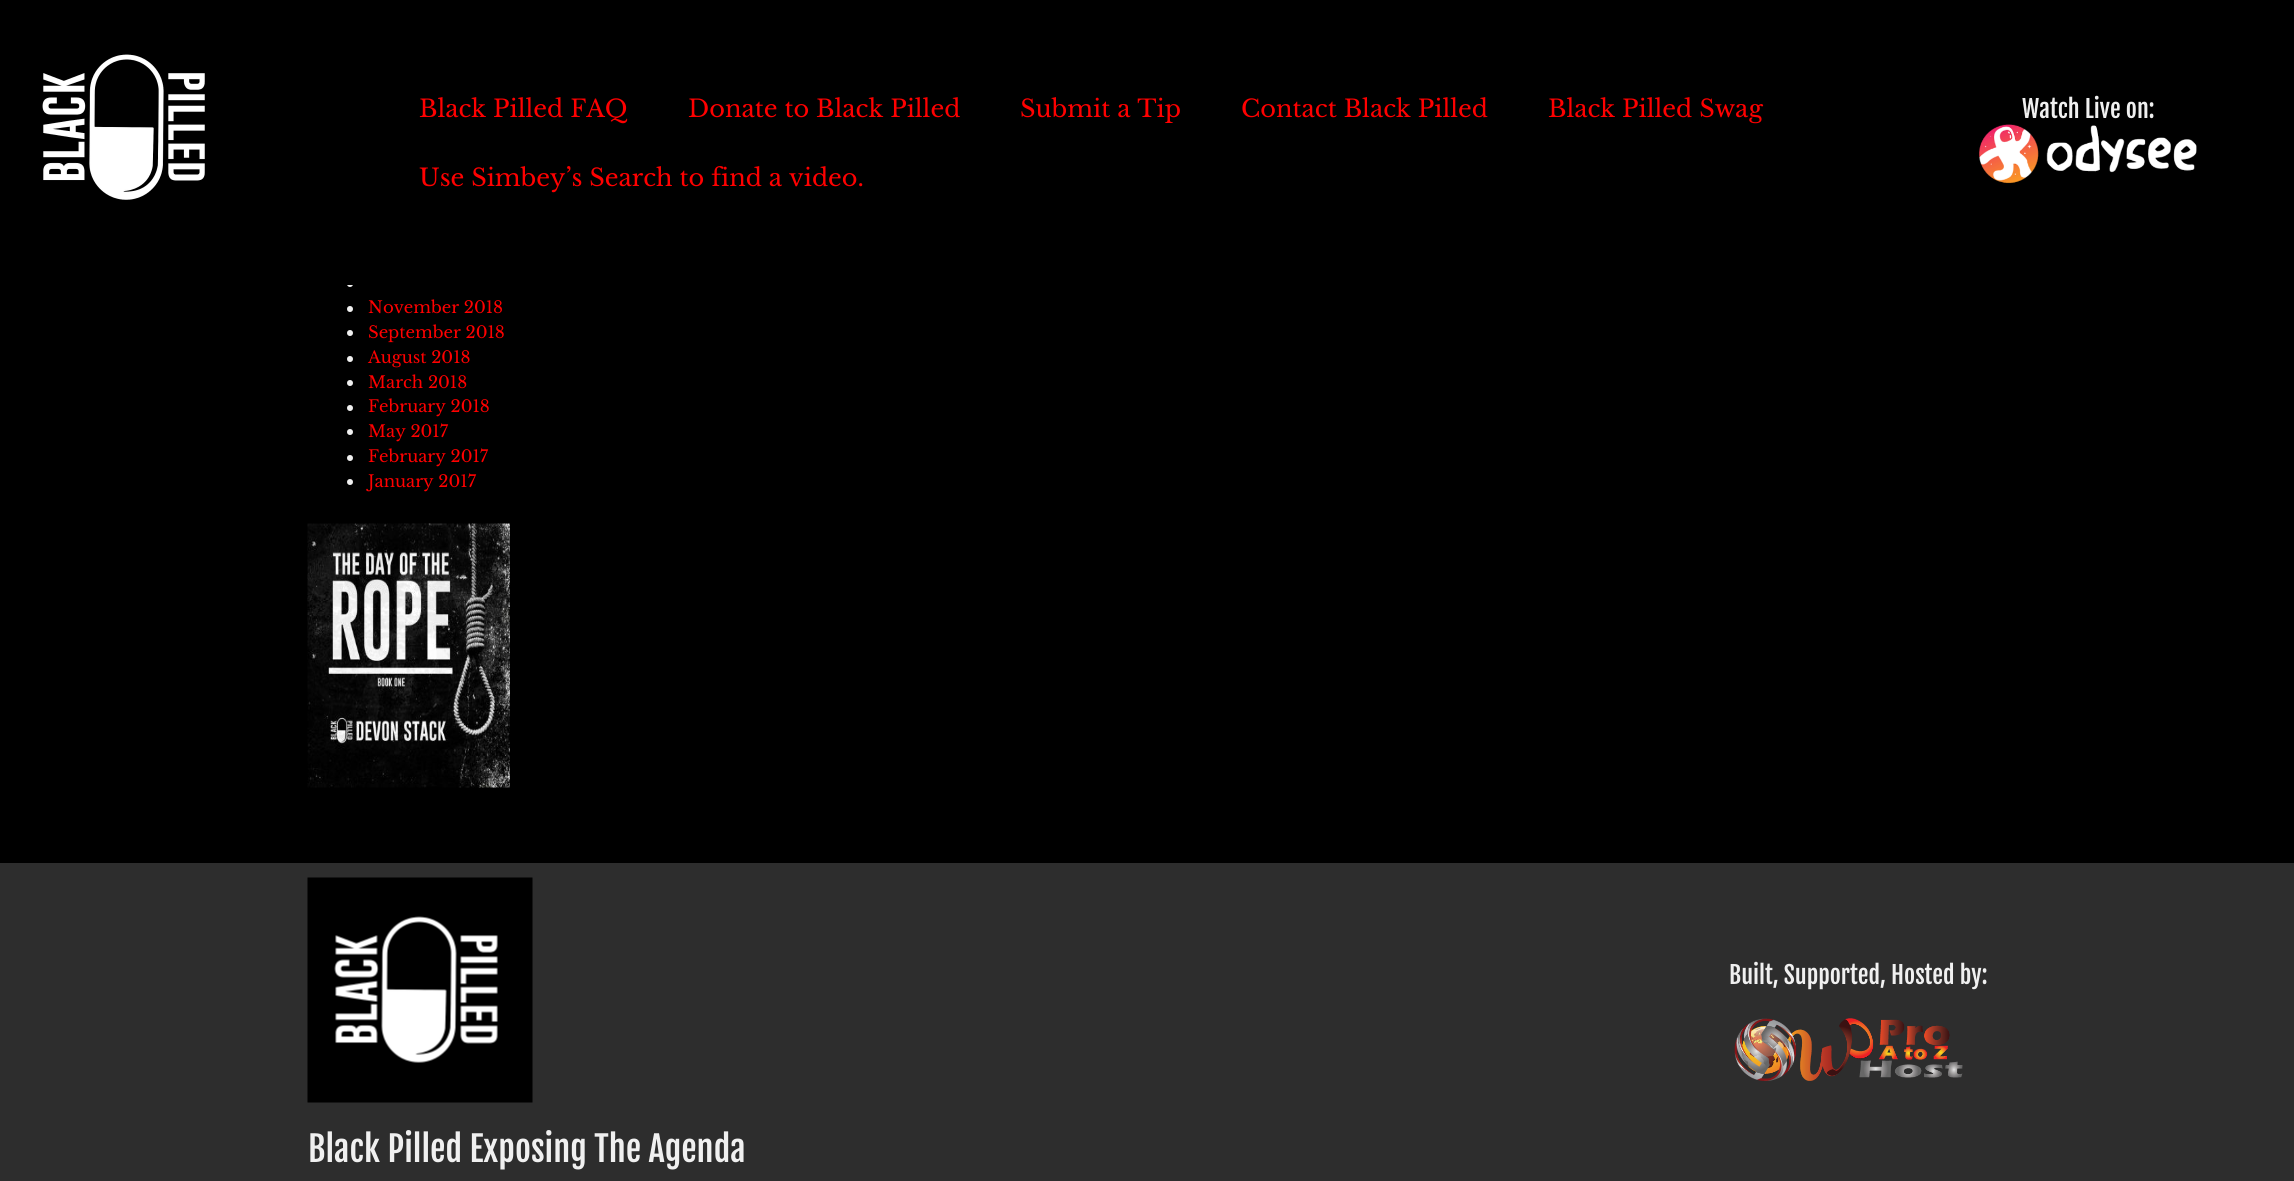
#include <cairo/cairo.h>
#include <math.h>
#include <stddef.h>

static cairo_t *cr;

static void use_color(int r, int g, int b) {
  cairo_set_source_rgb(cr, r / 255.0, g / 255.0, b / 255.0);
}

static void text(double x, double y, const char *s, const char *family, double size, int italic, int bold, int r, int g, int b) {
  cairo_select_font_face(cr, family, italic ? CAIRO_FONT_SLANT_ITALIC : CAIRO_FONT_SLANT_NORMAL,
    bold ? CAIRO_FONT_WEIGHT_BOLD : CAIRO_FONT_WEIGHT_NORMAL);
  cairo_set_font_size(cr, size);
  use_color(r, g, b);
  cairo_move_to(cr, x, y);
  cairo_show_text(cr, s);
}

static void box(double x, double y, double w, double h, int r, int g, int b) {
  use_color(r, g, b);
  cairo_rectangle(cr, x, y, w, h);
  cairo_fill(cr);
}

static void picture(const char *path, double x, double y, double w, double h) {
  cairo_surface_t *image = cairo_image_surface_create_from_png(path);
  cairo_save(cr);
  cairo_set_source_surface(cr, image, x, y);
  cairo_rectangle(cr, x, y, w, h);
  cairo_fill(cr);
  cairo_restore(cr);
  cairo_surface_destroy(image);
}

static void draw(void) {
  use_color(0, 0, 0);
  cairo_paint(cr);
  use_color(240, 240, 240);
  cairo_arc(cr, 350, 284, 3, 0, 2 * M_PI);
  cairo_fill(cr);
  box(347, 281, 6, 4, 0, 0, 0);
  picture("img_01.png", 42, 54, 163, 146);
  picture("img_02.png", 1979, 124, 218, 60);
  use_color(240, 240, 240);
  cairo_arc(cr, 350, 309, 3, 0, 2 * M_PI);
  cairo_fill(cr);
  cairo_arc(cr, 350, 333, 3, 0, 2 * M_PI);
  cairo_fill(cr);
  cairo_arc(cr, 350, 359, 3, 0, 2 * M_PI);
  cairo_fill(cr);
  cairo_arc(cr, 350, 383, 3, 0, 2 * M_PI);
  cairo_fill(cr);
  cairo_arc(cr, 350, 408, 3, 0, 2 * M_PI);
  cairo_fill(cr);
  cairo_arc(cr, 350, 432, 3, 0, 2 * M_PI);
  cairo_fill(cr);
  cairo_arc(cr, 350, 458, 3, 0, 2 * M_PI);
  cairo_fill(cr);
  cairo_arc(cr, 350, 482, 3, 0, 2 * M_PI);
  cairo_fill(cr);
  picture("img_03.png", 307, 523, 203, 265);
  box(0, 863, 2294, 318, 45, 45, 45);
  picture("img_04.png", 1734, 1018, 229, 63);
  picture("img_05.png", 307, 877, 226, 226);
  text(419, 117, "Black Pilled FAQ", "Libre Baskerville", 24, 0, 0, 255, 0, 0);
  text(688, 117, "Donate to Black Pilled", "Libre Baskerville", 24, 0, 0, 255, 0, 0);
  text(1020, 117, "Submit a Tip", "Libre Baskerville", 24, 0, 0, 255, 0, 0);
  text(1241, 117, "Contact Black Pilled", "Libre Baskerville", 24, 0, 0, 255, 0, 0);
  text(1548, 117, "Black Pilled Swag", "Libre Baskerville", 24, 0, 0, 255, 0, 0);
  text(419, 186, "Use Simbey’s Search to find a video.", "Libre Baskerville", 24, 0, 0, 255, 0, 0);
  text(2022, 118, "Watch Live on:", "Fjalla One", 24, 0, 0, 240, 240, 240);
  text(368, 313, "November 2018", "Libre Baskerville", 16.5, 0, 0, 255, 0, 0);
  text(368, 338, "September 2018", "Libre Baskerville", 16.5, 0, 0, 255, 0, 0);
  text(368, 363, "August 2018", "Libre Baskerville", 16.5, 0, 0, 255, 0, 0);
  text(368, 388, "March 2018", "Libre Baskerville", 16.5, 0, 0, 255, 0, 0);
  text(368, 412, "February 2018", "Libre Baskerville", 16.5, 0, 0, 255, 0, 0);
  text(368, 437, "May 2017", "Libre Baskerville", 16.5, 0, 0, 255, 0, 0);
  text(368, 462, "February 2017", "Libre Baskerville", 16.5, 0, 0, 255, 0, 0);
  text(368, 487, "January 2017", "Libre Baskerville", 16.5, 0, 0, 255, 0, 0);
  text(1729, 984, "Built, Supported, Hosted by:", "Fjalla One", 24, 0, 0, 240, 240, 240);
  text(308, 1162, "Black Pilled Exposing The Agenda", "Fjalla One", 34.5, 0, 0, 240, 240, 240);
}

int main(void) {
  cairo_surface_t *surface = cairo_image_surface_create(CAIRO_FORMAT_RGB24, 2294, 1181);
  cr = cairo_create(surface);
  cairo_font_options_t *options = cairo_font_options_create();
  cairo_font_options_set_hint_metrics(options, CAIRO_HINT_METRICS_OFF);
  cairo_font_options_set_hint_style(options, CAIRO_HINT_STYLE_NONE);
  cairo_set_font_options(cr, options);
  cairo_set_miter_limit(cr, 4);
  draw();
  cairo_surface_write_to_png(surface, "out.png");
  cairo_font_options_destroy(options);
  cairo_destroy(cr);
  cairo_surface_destroy(surface);
  return 0;
}
